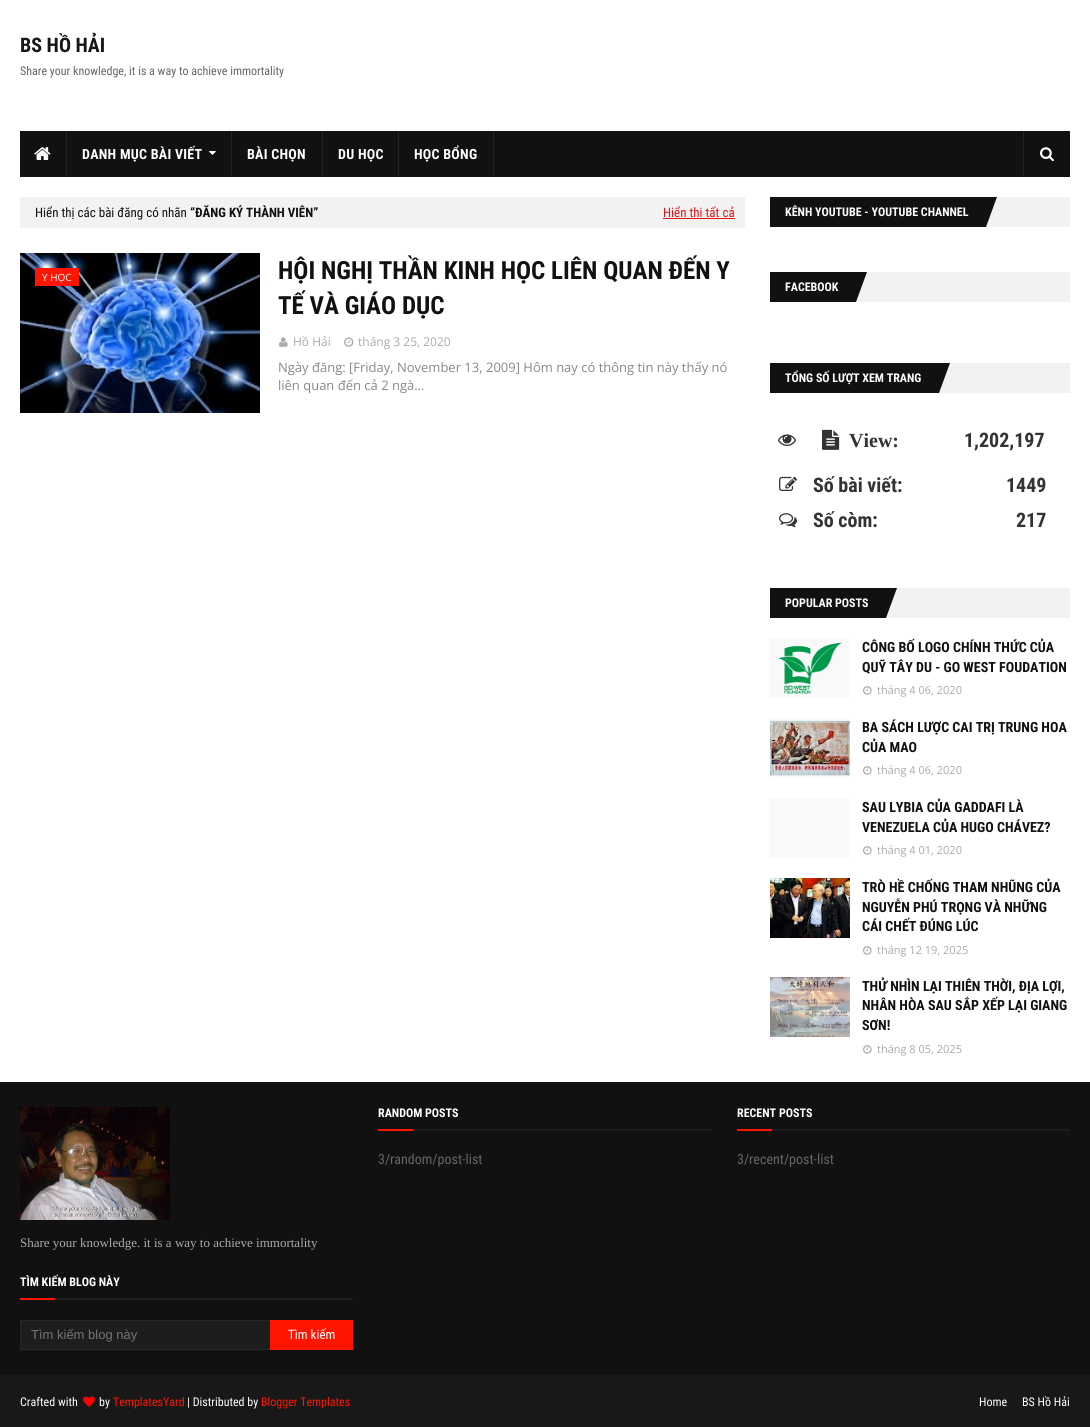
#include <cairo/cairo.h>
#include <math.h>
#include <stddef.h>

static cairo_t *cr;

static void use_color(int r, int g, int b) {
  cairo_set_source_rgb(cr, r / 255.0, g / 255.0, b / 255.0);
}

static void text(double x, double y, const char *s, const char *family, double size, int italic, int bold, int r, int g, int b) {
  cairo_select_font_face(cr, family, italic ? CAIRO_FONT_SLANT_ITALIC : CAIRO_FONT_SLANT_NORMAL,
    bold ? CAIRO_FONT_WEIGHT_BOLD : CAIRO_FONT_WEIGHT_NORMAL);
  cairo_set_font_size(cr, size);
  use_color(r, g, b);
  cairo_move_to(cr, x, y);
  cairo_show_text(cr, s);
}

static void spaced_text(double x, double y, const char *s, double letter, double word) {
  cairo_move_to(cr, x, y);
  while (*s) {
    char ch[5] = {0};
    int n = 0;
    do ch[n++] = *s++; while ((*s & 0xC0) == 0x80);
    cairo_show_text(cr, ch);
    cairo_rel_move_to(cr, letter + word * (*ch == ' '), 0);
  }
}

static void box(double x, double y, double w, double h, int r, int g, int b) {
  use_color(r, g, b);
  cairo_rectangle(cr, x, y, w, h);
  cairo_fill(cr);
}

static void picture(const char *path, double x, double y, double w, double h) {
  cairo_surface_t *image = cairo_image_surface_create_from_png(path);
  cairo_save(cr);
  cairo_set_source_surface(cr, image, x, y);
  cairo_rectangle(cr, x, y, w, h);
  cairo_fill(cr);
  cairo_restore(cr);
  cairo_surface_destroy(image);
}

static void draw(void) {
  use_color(255, 255, 255);
  cairo_paint(cr);
  box(20, 131, 1050, 46, 17, 17, 17);
  box(66, 131, 1, 46, 36, 36, 36);
  picture("img_01.png", 34, 147, 17, 13);
  box(231, 131, 1, 46, 36, 36, 36);
  picture("img_02.png", 209, 151, 7, 4);
  box(322, 131, 1, 46, 36, 36, 36);
  box(398, 131, 1, 46, 36, 36, 36);
  box(493, 131, 1, 46, 36, 36, 36);
  box(1023, 131, 1, 46, 36, 36, 36);
  picture("img_03.png", 1040, 147, 14, 15);
  box(20, 197, 725, 31, 242, 242, 242);
  box(663, 218, 72, 1, 229, 21, 21);
  picture("img_04.png", 20, 253, 240, 160);
  box(35, 268, 44, 18, 255, 21, 0);
  picture("img_05.png", 279, 337, 9, 10);
  picture("img_06.png", 344, 337, 10, 10);
  box(986, 197, 84, 30, 242, 242, 242);
  box(770, 197, 212, 30, 17, 17, 17);
  cairo_new_path(cr);
  cairo_move_to(cr, 982, 197);
  cairo_line_to(cr, 997, 197);
  cairo_line_to(cr, 986, 227);
  cairo_line_to(cr, 971, 227);
  cairo_close_path(cr);
  cairo_fill(cr);
  box(856, 272, 214, 30, 242, 242, 242);
  box(770, 272, 82, 30, 17, 17, 17);
  cairo_new_path(cr);
  cairo_move_to(cr, 852, 272);
  cairo_line_to(cr, 867, 272);
  cairo_line_to(cr, 856, 302);
  cairo_line_to(cr, 841, 302);
  cairo_close_path(cr);
  cairo_fill(cr);
  box(939, 363, 131, 30, 242, 242, 242);
  box(770, 363, 165, 30, 17, 17, 17);
  cairo_new_path(cr);
  cairo_move_to(cr, 935, 363);
  cairo_line_to(cr, 950, 363);
  cairo_line_to(cr, 939, 393);
  cairo_line_to(cr, 924, 393);
  cairo_close_path(cr);
  cairo_fill(cr);
  picture("img_07.png", 778, 434, 18, 12);
  picture("img_08.png", 822, 429, 18, 21);
  picture("img_09.png", 779, 476, 18, 15);
  picture("img_10.png", 779, 513, 18, 15);
  box(886, 588, 184, 30, 242, 242, 242);
  box(770, 588, 112, 30, 17, 17, 17);
  cairo_new_path(cr);
  cairo_move_to(cr, 882, 588);
  cairo_line_to(cr, 897, 588);
  cairo_line_to(cr, 886, 618);
  cairo_line_to(cr, 871, 618);
  cairo_close_path(cr);
  cairo_fill(cr);
  box(770, 638, 80, 60, 249, 249, 249);
  picture("img_11.png", 778, 642, 64, 52);
  picture("img_12.png", 863, 686, 9, 9);
  box(770, 718, 80, 60, 249, 249, 249);
  picture("img_13.png", 770, 720, 80, 57);
  picture("img_12.png", 863, 766, 9, 9);
  box(770, 798, 80, 60, 249, 249, 249);
  picture("img_12.png", 863, 846, 9, 9);
  picture("img_14.png", 770, 878, 80, 60);
  picture("img_12.png", 863, 946, 9, 9);
  picture("img_15.png", 770, 977, 80, 60);
  picture("img_12.png", 863, 1045, 9, 9);
  box(0, 1082, 1090, 293, 17, 17, 17);
  box(413, 1129, 299, 2, 29, 29, 29);
  box(378, 1129, 35, 2, 255, 21, 0);
  box(772, 1129, 298, 2, 29, 29, 29);
  box(737, 1129, 35, 2, 255, 21, 0);
  picture("img_16.png", 20, 1107, 150, 113);
  box(55, 1298, 298, 2, 29, 29, 29);
  box(20, 1298, 35, 2, 255, 21, 0);
  box(20, 1320, 250, 30, 29, 29, 29);
  use_color(40, 40, 40);
  cairo_new_path(cr);
  cairo_move_to(cr, 20, 1320);
  cairo_line_to(cr, 270, 1320);
  cairo_line_to(cr, 270, 1321);
  cairo_line_to(cr, 21, 1321);
  cairo_close_path(cr);
  cairo_fill(cr);
  cairo_new_path(cr);
  cairo_move_to(cr, 270, 1350);
  cairo_line_to(cr, 20, 1350);
  cairo_line_to(cr, 21, 1349);
  cairo_line_to(cr, 270, 1349);
  cairo_close_path(cr);
  cairo_fill(cr);
  cairo_set_source_rgba(cr, 1, 1, 1, 0.05);
  cairo_new_path(cr);
  cairo_move_to(cr, 20, 1350);
  cairo_line_to(cr, 20, 1320);
  cairo_line_to(cr, 21, 1321);
  cairo_line_to(cr, 21, 1349);
  cairo_close_path(cr);
  cairo_fill(cr);
  box(270, 1320, 83, 30, 255, 21, 0);
  box(0, 1375, 1090, 52, 24, 24, 24);
  picture("img_17.png", 83, 1396, 12, 11);
  text(20, 52, "BS HỒ HẢI", "Roboto Condensed", 20, 0, 1, 22, 22, 25);
  text(20, 75, "Share your knowledge, it is a way to achieve immortality", "Roboto Condensed", 12, 0, 0, 101, 101, 101);
  cairo_select_font_face(cr, "Roboto Condensed", CAIRO_FONT_SLANT_NORMAL, CAIRO_FONT_WEIGHT_BOLD);
  cairo_set_font_size(cr, 14);
  use_color(255, 255, 255);
  spaced_text(82, 159, "DANH MỤC BÀI VIẾT", 0.25, 0);
  spaced_text(247, 159, "BÀI CHỌN", 0.25, 0);
  spaced_text(338, 159, "DU HỌC", 0.25, 0);
  spaced_text(414, 159, "HỌC BỔNG", 0.25, 0);
  text(35, 217, "Hiển thị các bài đăng có nhãn", "Roboto Condensed", 13, 0, 0, 17, 17, 17);
  text(190, 217, "“ĐĂNG KÝ THÀNH VIÊN”", "Roboto Condensed", 13, 0, 1, 17, 17, 17);
  text(663, 217, "Hiển thị tất cả", "Roboto Condensed", 13, 0, 0, 229, 21, 21);
  text(42, 281, "Y HỌC", "Open Sans", 10, 0, 0, 255, 255, 255);
  text(278, 279, "HỘI NGHỊ THẦN KINH HỌC LIÊN QUAN ĐẾN Y", "Roboto Condensed", 25, 0, 1, 17, 17, 17);
  text(278, 314, "TẾ VÀ GIÁO DỤC", "Roboto Condensed", 25, 0, 1, 17, 17, 17);
  text(293, 346, "Hồ Hải", "Open Sans", 12, 0, 0, 170, 170, 170);
  text(358, 346, "tháng 3 25, 2020", "Open Sans", 12, 0, 0, 170, 170, 170);
  text(278, 372, "Ngày đăng: [Friday, November 13, 2009] Hôm nay có thông tin này thấy nó", "Open Sans", 13, 0, 0, 136, 136, 136);
  text(278, 390, "liên quan đến cả 2 ngà…", "Open Sans", 13, 0, 0, 136, 136, 136);
  text(785, 216, "KÊNH YOUTUBE - YOUTUBE CHANNEL", "Roboto Condensed", 12, 0, 1, 255, 255, 255);
  text(785, 291, "FACEBOOK", "Roboto Condensed", 12, 0, 1, 255, 255, 255);
  text(785, 382, "TỔNG SỐ LƯỢT XEM TRANG", "Roboto Condensed", 12, 0, 1, 255, 255, 255);
  text(849, 447, "View:", "Liberation Serif", 20, 0, 1, 51, 51, 51);
  text(964, 447, "1,202,197", "Roboto Condensed", 20, 0, 1, 51, 51, 51);
  text(813, 492, "Số bài viết:", "Roboto Condensed", 20, 0, 1, 51, 51, 51);
  text(1006, 492, "1449", "Roboto Condensed", 20, 0, 1, 51, 51, 51);
  text(813, 527, "Số còm:", "Roboto Condensed", 20, 0, 1, 51, 51, 51);
  text(1016, 527, "217", "Roboto Condensed", 20, 0, 1, 51, 51, 51);
  text(785, 607, "POPULAR POSTS", "Roboto Condensed", 12, 0, 1, 255, 255, 255);
  text(862, 652, "CÔNG BỐ LOGO CHÍNH THỨC CỦA", "Roboto Condensed", 14, 0, 1, 17, 17, 17);
  text(862, 672, "QUỸ TÂY DU - GO WEST FOUDATION", "Roboto Condensed", 14, 0, 1, 17, 17, 17);
  text(877, 694, "tháng 4 06, 2020", "Open Sans", 11, 0, 0, 170, 170, 170);
  text(862, 732, "BA SÁCH LƯỢC CAI TRỊ TRUNG HOA", "Roboto Condensed", 14, 0, 1, 17, 17, 17);
  text(862, 752, "CỦA MAO", "Roboto Condensed", 14, 0, 1, 17, 17, 17);
  text(877, 774, "tháng 4 06, 2020", "Open Sans", 11, 0, 0, 170, 170, 170);
  text(862, 812, "SAU LYBIA CỦA GADDAFI LÀ", "Roboto Condensed", 14, 0, 1, 17, 17, 17);
  text(862, 832, "VENEZUELA CỦA HUGO CHÁVEZ?", "Roboto Condensed", 14, 0, 1, 17, 17, 17);
  text(877, 854, "tháng 4 01, 2020", "Open Sans", 11, 0, 0, 170, 170, 170);
  text(862, 892, "TRÒ HỀ CHỐNG THAM NHŨNG CỦA", "Roboto Condensed", 14, 0, 1, 17, 17, 17);
  text(862, 912, "NGUYỄN PHÚ TRỌNG VÀ NHỮNG", "Roboto Condensed", 14, 0, 1, 17, 17, 17);
  text(862, 931, "CÁI CHẾT ĐÚNG LÚC", "Roboto Condensed", 14, 0, 1, 17, 17, 17);
  text(877, 954, "tháng 12 19, 2025", "Open Sans", 11, 0, 0, 170, 170, 170);
  text(862, 991, "THỬ NHÌN LẠI THIÊN THỜI, ĐỊA LỢI,", "Roboto Condensed", 14, 0, 1, 17, 17, 17);
  text(862, 1010, "NHÂN HÒA SAU SẮP XẾP LẠI GIANG", "Roboto Condensed", 14, 0, 1, 17, 17, 17);
  text(862, 1030, "SƠN!", "Roboto Condensed", 14, 0, 1, 17, 17, 17);
  text(877, 1053, "tháng 8 05, 2025", "Open Sans", 11, 0, 0, 170, 170, 170);
  text(378, 1117, "RANDOM POSTS", "Roboto Condensed", 12, 0, 1, 255, 255, 255);
  text(378, 1164, "3/random/post-list", "Roboto Condensed", 14, 0, 0, 101, 101, 101);
  text(737, 1117, "RECENT POSTS", "Roboto Condensed", 12, 0, 1, 255, 255, 255);
  text(737, 1164, "3/recent/post-list", "Roboto Condensed", 14, 0, 0, 101, 101, 101);
  text(20, 1247, "Share your knowledge. it is a way to achieve immortality", "Liberation Serif", 13, 0, 0, 170, 170, 170);
  text(20, 1286, "TÌM KIẾM BLOG NÀY", "Roboto Condensed", 12, 0, 1, 255, 255, 255);
  text(31, 1339, "Tìm kiếm blog này", "Liberation Sans", 13, 0, 0, 117, 117, 117);
  text(288, 1339, "Tìm kiếm", "Roboto Condensed", 13, 0, 0, 255, 255, 255);
  text(20, 1406, "Crafted with", "Roboto Condensed", 12, 0, 0, 255, 255, 255);
  text(99, 1406, "by", "Roboto Condensed", 12, 0, 0, 255, 255, 255);
  text(113, 1406, "TemplatesYard", "Roboto Condensed", 12, 0, 0, 255, 21, 0);
  text(187, 1406, "| Distributed by", "Roboto Condensed", 12, 0, 0, 255, 255, 255);
  text(261, 1406, "Blogger Templates", "Roboto Condensed", 12, 0, 0, 255, 21, 0);
  text(979, 1406, "Home", "Roboto Condensed", 12, 0, 0, 255, 255, 255);
  text(1022, 1406, "BS Hồ Hải", "Roboto Condensed", 12, 0, 0, 255, 255, 255);
}

int main(void) {
  cairo_surface_t *surface = cairo_image_surface_create(CAIRO_FORMAT_RGB24, 1090, 1427);
  cr = cairo_create(surface);
  cairo_font_options_t *options = cairo_font_options_create();
  cairo_font_options_set_hint_metrics(options, CAIRO_HINT_METRICS_OFF);
  cairo_font_options_set_hint_style(options, CAIRO_HINT_STYLE_NONE);
  cairo_set_font_options(cr, options);
  cairo_set_miter_limit(cr, 4);
  draw();
  cairo_surface_write_to_png(surface, "out.png");
  cairo_font_options_destroy(options);
  cairo_destroy(cr);
  cairo_surface_destroy(surface);
  return 0;
}
